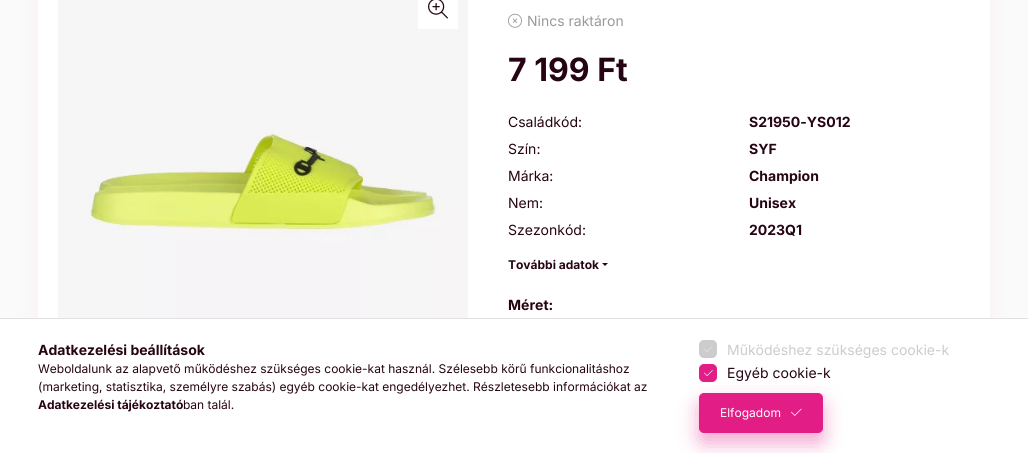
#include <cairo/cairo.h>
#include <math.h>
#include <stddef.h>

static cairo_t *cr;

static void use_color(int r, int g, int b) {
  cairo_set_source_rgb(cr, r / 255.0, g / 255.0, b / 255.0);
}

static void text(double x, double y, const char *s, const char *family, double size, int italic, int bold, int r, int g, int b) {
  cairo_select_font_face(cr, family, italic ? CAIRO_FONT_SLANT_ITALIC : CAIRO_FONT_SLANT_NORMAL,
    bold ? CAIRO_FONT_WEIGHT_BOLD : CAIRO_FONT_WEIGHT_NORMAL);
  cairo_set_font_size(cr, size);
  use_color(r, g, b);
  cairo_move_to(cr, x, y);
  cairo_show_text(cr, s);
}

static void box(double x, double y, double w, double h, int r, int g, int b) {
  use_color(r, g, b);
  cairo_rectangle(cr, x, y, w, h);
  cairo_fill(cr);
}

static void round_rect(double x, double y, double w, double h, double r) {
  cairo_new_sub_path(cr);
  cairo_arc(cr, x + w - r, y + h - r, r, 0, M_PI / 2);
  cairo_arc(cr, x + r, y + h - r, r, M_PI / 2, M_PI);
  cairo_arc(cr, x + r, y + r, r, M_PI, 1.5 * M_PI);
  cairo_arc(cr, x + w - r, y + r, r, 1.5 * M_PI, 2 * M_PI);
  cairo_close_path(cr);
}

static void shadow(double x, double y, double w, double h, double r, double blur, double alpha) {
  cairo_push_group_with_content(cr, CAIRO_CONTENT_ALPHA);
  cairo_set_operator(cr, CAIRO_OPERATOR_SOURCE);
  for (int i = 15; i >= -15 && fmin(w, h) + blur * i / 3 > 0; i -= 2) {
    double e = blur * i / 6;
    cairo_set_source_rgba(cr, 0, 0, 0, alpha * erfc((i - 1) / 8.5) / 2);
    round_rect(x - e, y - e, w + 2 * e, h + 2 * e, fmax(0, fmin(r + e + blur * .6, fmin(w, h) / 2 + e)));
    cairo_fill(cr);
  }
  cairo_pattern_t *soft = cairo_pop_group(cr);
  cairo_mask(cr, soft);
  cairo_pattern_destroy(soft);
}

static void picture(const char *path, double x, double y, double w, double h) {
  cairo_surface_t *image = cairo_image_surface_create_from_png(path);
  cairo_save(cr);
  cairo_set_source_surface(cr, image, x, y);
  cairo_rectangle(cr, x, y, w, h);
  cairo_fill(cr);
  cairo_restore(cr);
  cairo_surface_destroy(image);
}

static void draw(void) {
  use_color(250, 250, 250);
  cairo_paint(cr);
  use_color(227, 29, 134);
  shadow(38, -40, 952, 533, 10, 10, 0.05);
  box(38, 0, 952, 318, 255, 255, 255);
  picture("img_01.png", 58, 0, 410, 318);
  box(418, 0, 40, 29, 255, 255, 255);
  picture("img_02.png", 428, 0, 20, 19);
  picture("img_03.png", 508, 13, 14, 15);
  use_color(38, 4, 19);
  cairo_new_path(cr);
  cairo_move_to(cr, 602, 263);
  cairo_line_to(cr, 608, 263);
  cairo_line_to(cr, 605, 266);
  cairo_close_path(cr);
  cairo_fill(cr);
  box(0, 319, 1028, 134, 255, 255, 255);
  box(0, 318, 1028, 1, 225, 225, 225);
  use_color(204, 204, 204);
  round_rect(699.5, 340.5, 17, 17, 4.5);
  cairo_fill_preserve(cr);
  cairo_set_line_width(cr, 1);
  cairo_stroke(cr);
  picture("img_04.png", 704, 346, 9, 6);
  use_color(227, 29, 134);
  shadow(699, 403, 124, 40, 5, 10, 0.4);
  use_color(227, 29, 134);
  round_rect(699.5, 364.5, 17, 17, 4.5);
  cairo_fill_preserve(cr);
  cairo_stroke(cr);
  picture("img_05.png", 704, 370, 9, 6);
  round_rect(699.5, 393.5, 123, 39, 4.5);
  cairo_fill_preserve(cr);
  cairo_stroke(cr);
  picture("img_06.png", 791, 408, 11, 8);
  text(527, 26, "Nincs raktáron", "Inter", 14, 0, 0, 153, 153, 153);
  text(508, 81, "7 199 Ft", "Inter", 32, 0, 1, 38, 4, 19);
  text(508, 127, "Családkód:", "Inter", 14, 0, 0, 38, 4, 19);
  text(749, 127, "S21950-YS012", "Inter", 14, 0, 1, 38, 4, 19);
  text(508, 154, "Szín:", "Inter", 14, 0, 0, 38, 4, 19);
  text(749, 154, "SYF", "Inter", 14, 0, 1, 38, 4, 19);
  text(508, 181, "Márka:", "Inter", 14, 0, 0, 38, 4, 19);
  text(749, 181, "Champion", "Inter", 14, 0, 1, 38, 4, 19);
  text(508, 208, "Nem:", "Inter", 14, 0, 0, 38, 4, 19);
  text(749, 208, "Unisex", "Inter", 14, 0, 1, 38, 4, 19);
  text(508, 235, "Szezonkód:", "Inter", 14, 0, 0, 38, 4, 19);
  text(749, 235, "2023Q1", "Inter", 14, 0, 1, 38, 4, 19);
  text(508, 269, "További adatok", "Inter", 12, 0, 1, 38, 4, 19);
  text(508, 310, "Méret:", "Inter", 14, 0, 1, 38, 4, 19);
  text(38, 355, "Adatkezelési beállítások", "Inter", 14, 0, 1, 38, 4, 19);
  text(38, 373, "Weboldalunk az alapvető működéshez szükséges cookie-kat használ. Szélesebb körű funkcionalitáshoz", "Inter", 12, 0, 0, 38, 4, 19);
  text(38, 391, "(marketing, statisztika, személyre szabás) egyéb cookie-kat engedélyezhet. Részletesebb információkat az", "Inter", 12, 0, 0, 38, 4, 19);
  text(38, 409, "Adatkezelési tájékoztató", "Inter", 12, 0, 1, 38, 4, 19);
  text(183, 409, "ban talál.", "Inter", 12, 0, 0, 38, 4, 19);
  text(727, 355, "Működéshez szükséges cookie-k", "Inter", 14, 0, 0, 204, 204, 204);
  text(727, 378, "Egyéb cookie-k", "Inter", 14, 0, 0, 38, 4, 19);
  text(720, 417, "Elfogadom", "Inter", 12, 0, 0, 255, 255, 255);
}

int main(void) {
  cairo_surface_t *surface = cairo_image_surface_create(CAIRO_FORMAT_RGB24, 1028, 453);
  cr = cairo_create(surface);
  cairo_font_options_t *options = cairo_font_options_create();
  cairo_font_options_set_hint_metrics(options, CAIRO_HINT_METRICS_OFF);
  cairo_font_options_set_hint_style(options, CAIRO_HINT_STYLE_NONE);
  cairo_set_font_options(cr, options);
  cairo_set_miter_limit(cr, 4);
  draw();
  cairo_surface_write_to_png(surface, "out.png");
  cairo_font_options_destroy(options);
  cairo_destroy(cr);
  cairo_surface_destroy(surface);
  return 0;
}
